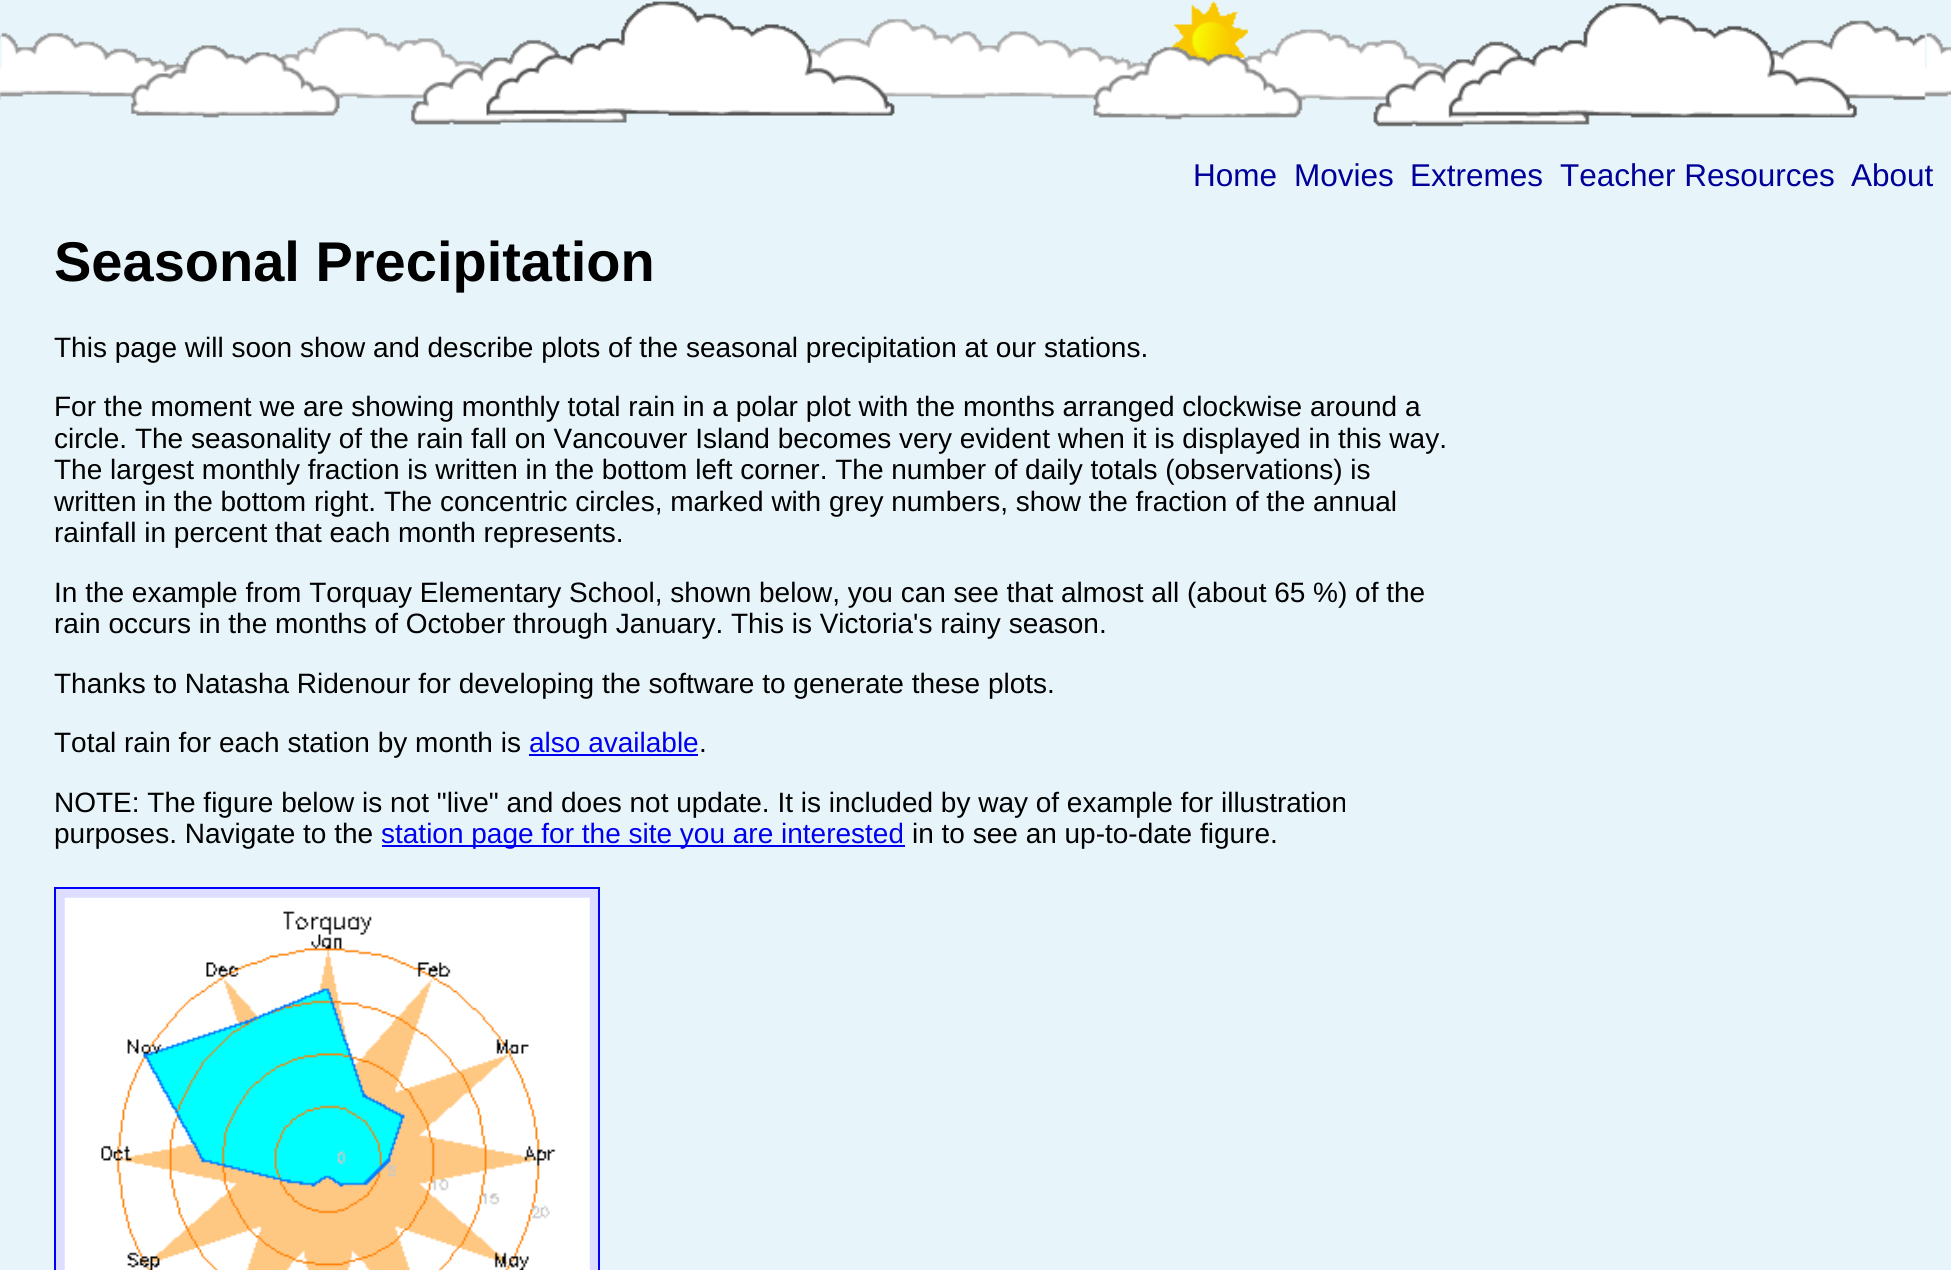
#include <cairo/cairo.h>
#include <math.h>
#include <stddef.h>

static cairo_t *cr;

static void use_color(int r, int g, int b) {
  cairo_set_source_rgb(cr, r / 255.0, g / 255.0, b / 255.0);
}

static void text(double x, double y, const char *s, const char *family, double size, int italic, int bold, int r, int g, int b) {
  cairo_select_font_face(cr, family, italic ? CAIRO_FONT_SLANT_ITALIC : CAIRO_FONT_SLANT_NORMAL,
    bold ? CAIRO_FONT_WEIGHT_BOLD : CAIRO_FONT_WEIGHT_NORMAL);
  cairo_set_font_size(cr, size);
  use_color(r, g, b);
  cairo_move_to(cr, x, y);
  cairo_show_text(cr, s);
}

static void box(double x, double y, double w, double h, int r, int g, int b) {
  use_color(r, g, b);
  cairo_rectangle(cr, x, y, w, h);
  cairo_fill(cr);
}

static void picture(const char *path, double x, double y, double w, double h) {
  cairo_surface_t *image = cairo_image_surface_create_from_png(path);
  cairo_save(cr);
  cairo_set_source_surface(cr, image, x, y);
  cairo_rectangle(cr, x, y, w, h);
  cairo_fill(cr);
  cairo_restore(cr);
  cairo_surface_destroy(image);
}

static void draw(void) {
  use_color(231, 245, 251);
  cairo_paint(cr);
  picture("img_02.png", 1172, 1, 77, 61);
  picture("img_01.png", 0, 1, 1951, 126);
  box(529, 754, 169, 2, 0, 0, 238);
  box(382, 845, 523, 2, 0, 0, 238);
  use_color(221, 221, 255);
  cairo_rectangle(cr, 55, 888, 544, 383);
  cairo_fill_preserve(cr);
  use_color(0, 0, 255);
  cairo_stroke(cr);
  picture("img_03.png", 64, 897, 526, 373);
  text(1193, 186, "Home", "Liberation Sans", 31.5, 0, 0, 0, 0, 153);
  text(1294, 186, "Movies", "Liberation Sans", 31.5, 0, 0, 0, 0, 153);
  text(1410, 186, "Extremes", "Liberation Sans", 31.5, 0, 0, 0, 0, 153);
  text(1560, 186, "Teacher Resources", "Liberation Sans", 31.5, 0, 0, 0, 0, 153);
  text(1851, 186, "About", "Liberation Sans", 31.5, 0, 0, 0, 0, 153);
  text(54, 281, "Seasonal Precipitation", "Liberation Sans", 56, 0, 1, 0, 0, 0);
  text(54, 357, "This page will soon show and describe plots of the seasonal precipitation at our stations.", "Liberation Sans", 28, 0, 0, 0, 0, 0);
  text(54, 416, "For the moment we are showing monthly total rain in a polar plot with the months arranged clockwise around a", "Liberation Sans", 28, 0, 0, 0, 0, 0);
  text(54, 448, "circle. The seasonality of the rain fall on Vancouver Island becomes very evident when it is displayed in this way.", "Liberation Sans", 28, 0, 0, 0, 0, 0);
  text(54, 479, "The largest monthly fraction is written in the bottom left corner. The number of daily totals (observations) is", "Liberation Sans", 28, 0, 0, 0, 0, 0);
  text(54, 511, "written in the bottom right. The concentric circles, marked with grey numbers, show the fraction of the annual", "Liberation Sans", 28, 0, 0, 0, 0, 0);
  text(54, 542, "rainfall in percent that each month represents.", "Liberation Sans", 28, 0, 0, 0, 0, 0);
  text(54, 602, "In the example from Torquay Elementary School, shown below, you can see that almost all (about 65 %) of the", "Liberation Sans", 28, 0, 0, 0, 0, 0);
  text(54, 633, "rain occurs in the months of October through January. This is Victoria's rainy season.", "Liberation Sans", 28, 0, 0, 0, 0, 0);
  text(54, 693, "Thanks to Natasha Ridenour for developing the software to generate these plots.", "Liberation Sans", 28, 0, 0, 0, 0, 0);
  text(54, 752, "Total rain for each station by month is", "Liberation Sans", 28, 0, 0, 0, 0, 0);
  text(529, 752, "also available", "Liberation Sans", 28, 0, 0, 0, 0, 238);
  text(699, 752, ".", "Liberation Sans", 28, 0, 0, 0, 0, 0);
  text(54, 812, "NOTE: The figure below is not \"live\" and does not update. It is included by way of example for illustration", "Liberation Sans", 28, 0, 0, 0, 0, 0);
  text(54, 843, "purposes. Navigate to the", "Liberation Sans", 28, 0, 0, 0, 0, 0);
  text(381, 843, "station page for the site you are interested", "Liberation Sans", 28, 0, 0, 0, 0, 238);
  text(912, 843, "in to see an up-to-date figure.", "Liberation Sans", 28, 0, 0, 0, 0, 0);
}

int main(void) {
  cairo_surface_t *surface = cairo_image_surface_create(CAIRO_FORMAT_RGB24, 1951, 1270);
  cr = cairo_create(surface);
  cairo_font_options_t *options = cairo_font_options_create();
  cairo_font_options_set_hint_metrics(options, CAIRO_HINT_METRICS_OFF);
  cairo_font_options_set_hint_style(options, CAIRO_HINT_STYLE_NONE);
  cairo_set_font_options(cr, options);
  cairo_set_miter_limit(cr, 4);
  draw();
  cairo_surface_write_to_png(surface, "out.png");
  cairo_font_options_destroy(options);
  cairo_destroy(cr);
  cairo_surface_destroy(surface);
  return 0;
}
